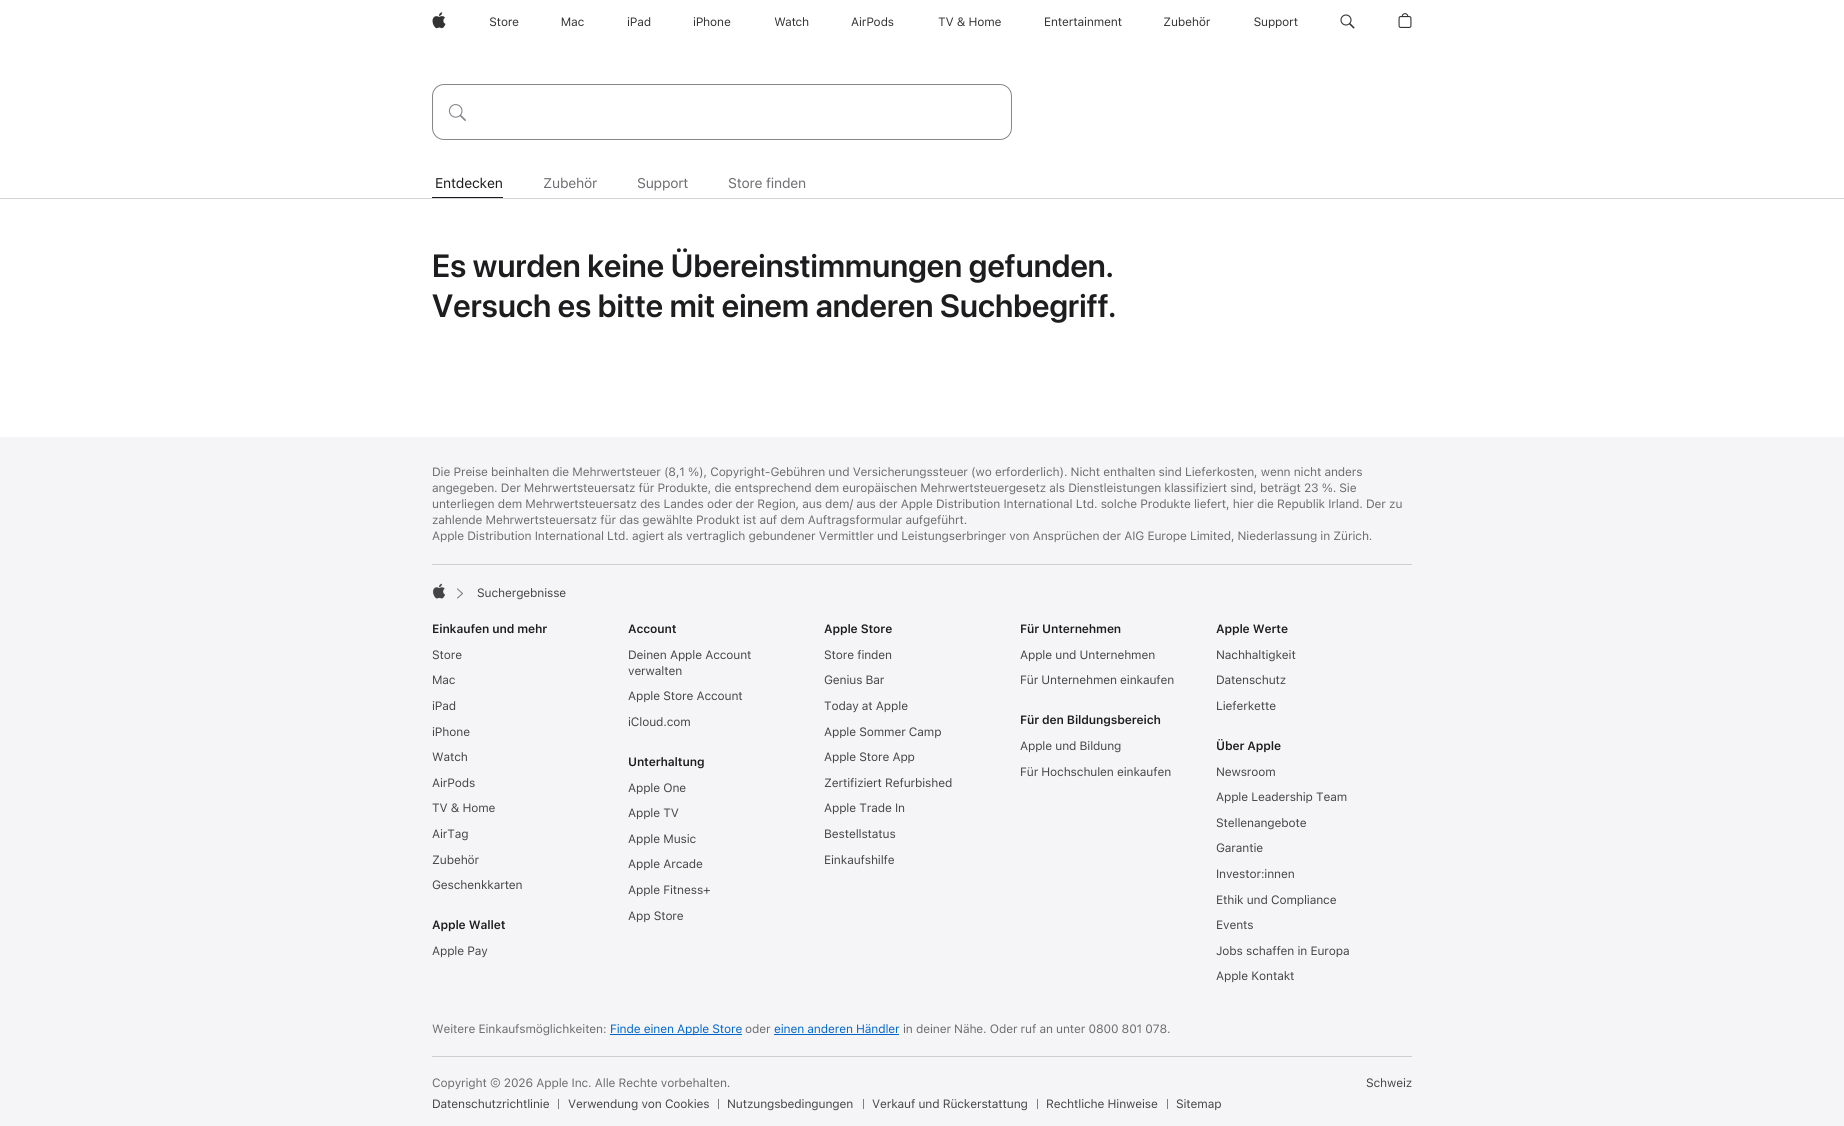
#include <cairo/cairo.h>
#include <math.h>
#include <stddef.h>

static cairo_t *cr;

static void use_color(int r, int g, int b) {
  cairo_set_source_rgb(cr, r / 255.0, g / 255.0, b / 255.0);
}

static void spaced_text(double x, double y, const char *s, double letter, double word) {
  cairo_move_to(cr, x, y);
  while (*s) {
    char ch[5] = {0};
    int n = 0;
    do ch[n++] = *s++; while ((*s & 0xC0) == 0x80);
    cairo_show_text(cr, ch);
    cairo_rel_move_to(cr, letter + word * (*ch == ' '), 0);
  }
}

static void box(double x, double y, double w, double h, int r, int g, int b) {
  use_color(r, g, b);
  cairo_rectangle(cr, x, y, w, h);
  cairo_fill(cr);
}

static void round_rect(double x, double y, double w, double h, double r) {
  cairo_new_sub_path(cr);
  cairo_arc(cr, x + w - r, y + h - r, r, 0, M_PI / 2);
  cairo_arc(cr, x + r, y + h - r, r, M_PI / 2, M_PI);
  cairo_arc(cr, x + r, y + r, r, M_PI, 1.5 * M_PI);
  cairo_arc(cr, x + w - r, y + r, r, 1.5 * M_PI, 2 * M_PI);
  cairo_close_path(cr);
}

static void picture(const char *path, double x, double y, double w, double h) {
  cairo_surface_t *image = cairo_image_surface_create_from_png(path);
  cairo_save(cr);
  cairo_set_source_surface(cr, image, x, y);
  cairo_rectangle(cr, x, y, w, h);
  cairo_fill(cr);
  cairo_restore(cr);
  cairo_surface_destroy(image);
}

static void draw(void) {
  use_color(255, 255, 255);
  cairo_paint(cr);
  picture("img_01.png", 432, 12, 14, 17);
  picture("img_02.png", 490, 17, 29, 10);
  picture("img_03.png", 561, 17, 23, 10);
  picture("img_04.png", 627, 17, 24, 10);
  picture("img_05.png", 693, 17, 38, 10);
  picture("img_06.png", 774, 17, 35, 10);
  picture("img_07.png", 851, 17, 43, 10);
  picture("img_08.png", 938, 17, 63, 10);
  picture("img_09.png", 1045, 17, 77, 9);
  picture("img_10.png", 1164, 17, 47, 10);
  picture("img_11.png", 1254, 17, 44, 12);
  picture("img_12.png", 1340, 14, 15, 15);
  picture("img_13.png", 1398, 13, 14, 15);
  round_rect(432.5, 84.5, 579, 55, 11.5);
  use_color(134, 134, 139);
  cairo_set_line_width(cr, 1);
  cairo_stroke(cr);
  picture("img_14.png", 448, 104, 18, 17);
  box(0, 198, 1844, 1, 210, 210, 215);
  box(432, 197, 71, 1, 29, 29, 31);
  box(0, 437, 1844, 689, 245, 245, 247);
  box(432, 564, 980, 1, 206, 206, 207);
  picture("img_15.png", 433, 583, 12, 16);
  cairo_new_path(cr);
  cairo_move_to(cr, 457.5, 589);
  cairo_line_to(cr, 462.5, 593.5);
  cairo_line_to(cr, 457.5, 598);
  use_color(127, 127, 128);
  cairo_set_line_width(cr, 1.1);
  cairo_set_line_cap(cr, CAIRO_LINE_CAP_ROUND);
  cairo_set_line_join(cr, CAIRO_LINE_JOIN_ROUND);
  cairo_stroke(cr);
  box(432, 1056, 980, 1, 206, 206, 207);
  box(610, 1034, 132, 1, 0, 102, 204);
  box(774, 1034, 125, 1, 0, 102, 204);
  box(558, 1099, 1, 10, 127, 127, 128);
  box(718, 1099, 1, 10, 127, 127, 128);
  box(863, 1099, 1, 10, 127, 127, 128);
  box(1037, 1099, 1, 10, 127, 127, 128);
  box(1167, 1099, 1, 10, 127, 127, 128);
  cairo_select_font_face(cr, "SF Pro Text", CAIRO_FONT_SLANT_NORMAL, CAIRO_FONT_WEIGHT_NORMAL);
  cairo_set_font_size(cr, 14);
  use_color(29, 29, 31);
  spaced_text(435, 188, "Entdecken", -0.25, 0);
  use_color(110, 110, 115);
  spaced_text(543, 188, "Zubehör", -0.25, 0);
  spaced_text(637, 188, "Support", -0.25, 0);
  spaced_text(728, 188, "Store finden", -0.25, 0);
  cairo_select_font_face(cr, "SF Pro Display SemiBold", CAIRO_FONT_SLANT_NORMAL, CAIRO_FONT_WEIGHT_NORMAL);
  cairo_set_font_size(cr, 32);
  use_color(29, 29, 31);
  spaced_text(432, 277, "Es wurden keine Übereinstimmungen gefunden.", 0.15, 0);
  spaced_text(432, 317, "Versuch es bitte mit einem anderen Suchbegriff.", 0.15, 0);
  cairo_select_font_face(cr, "SF Pro Text", CAIRO_FONT_SLANT_NORMAL, CAIRO_FONT_WEIGHT_NORMAL);
  cairo_set_font_size(cr, 12);
  use_color(108, 108, 109);
  spaced_text(432, 476, "Die Preise beinhalten die Mehrwertsteuer (8,1 %), Copyright-Gebühren und Versicherungssteuer (wo erforderlich). Nicht enthalten sind Lieferkosten, wenn nicht anders", -0.12, 0);
  spaced_text(432, 492, "angegeben. Der Mehrwertsteuersatz für Produkte, die entsprechend dem europäischen Mehrwertsteuergesetz als Dienstleistungen klassifiziert sind, beträgt 23 %. Sie", -0.12, 0);
  spaced_text(432, 508, "unterliegen dem Mehrwertsteuersatz des Landes oder der Region, aus dem/ aus der Apple Distribution International Ltd. solche Produkte liefert, hier die Republik Irland. Der zu", -0.12, 0);
  spaced_text(432, 524, "zahlende Mehrwertsteuersatz für das gewählte Produkt ist auf dem Auftragsformular aufgeführt.", -0.12, 0);
  spaced_text(432, 540, "Apple Distribution International Ltd. agiert als vertraglich gebundener Vermittler und Leistungserbringer von Ansprüchen der AIG Europe Limited, Niederlassung in Zürich.", -0.12, 0);
  use_color(69, 69, 69);
  spaced_text(477, 597, "Suchergebnisse", -0.12, 0);
  cairo_select_font_face(cr, "SF Pro Text SemiBold", CAIRO_FONT_SLANT_NORMAL, CAIRO_FONT_WEIGHT_NORMAL);
  use_color(29, 29, 31);
  spaced_text(432, 633, "Einkaufen und mehr", -0.12, 0);
  cairo_select_font_face(cr, "SF Pro Text", CAIRO_FONT_SLANT_NORMAL, CAIRO_FONT_WEIGHT_NORMAL);
  use_color(69, 69, 69);
  spaced_text(432, 659, "Store", -0.12, 0);
  spaced_text(432, 684, "Mac", -0.12, 0);
  spaced_text(432, 710, "iPad", -0.12, 0);
  spaced_text(432, 736, "iPhone", -0.12, 0);
  spaced_text(432, 761, "Watch", -0.12, 0);
  spaced_text(432, 787, "AirPods", -0.12, 0);
  spaced_text(432, 812, "TV & Home", -0.12, 0);
  spaced_text(432, 838, "AirTag", -0.12, 0);
  spaced_text(432, 864, "Zubehör", -0.12, 0);
  spaced_text(432, 889, "Geschenkkarten", -0.12, 0);
  cairo_select_font_face(cr, "SF Pro Text SemiBold", CAIRO_FONT_SLANT_NORMAL, CAIRO_FONT_WEIGHT_NORMAL);
  use_color(29, 29, 31);
  spaced_text(432, 929, "Apple Wallet", -0.12, 0);
  cairo_select_font_face(cr, "SF Pro Text", CAIRO_FONT_SLANT_NORMAL, CAIRO_FONT_WEIGHT_NORMAL);
  use_color(69, 69, 69);
  spaced_text(432, 955, "Apple Pay", -0.12, 0);
  cairo_select_font_face(cr, "SF Pro Text SemiBold", CAIRO_FONT_SLANT_NORMAL, CAIRO_FONT_WEIGHT_NORMAL);
  use_color(29, 29, 31);
  spaced_text(628, 633, "Account", -0.12, 0);
  cairo_select_font_face(cr, "SF Pro Text", CAIRO_FONT_SLANT_NORMAL, CAIRO_FONT_WEIGHT_NORMAL);
  use_color(69, 69, 69);
  spaced_text(628, 659, "Deinen Apple Account", -0.12, 0);
  spaced_text(628, 675, "verwalten", -0.12, 0);
  spaced_text(628, 700, "Apple Store Account", -0.12, 0);
  spaced_text(628, 726, "iCloud.com", -0.12, 0);
  cairo_select_font_face(cr, "SF Pro Text SemiBold", CAIRO_FONT_SLANT_NORMAL, CAIRO_FONT_WEIGHT_NORMAL);
  use_color(29, 29, 31);
  spaced_text(628, 766, "Unterhaltung", -0.12, 0);
  cairo_select_font_face(cr, "SF Pro Text", CAIRO_FONT_SLANT_NORMAL, CAIRO_FONT_WEIGHT_NORMAL);
  use_color(69, 69, 69);
  spaced_text(628, 792, "Apple One", -0.12, 0);
  spaced_text(628, 817, "Apple TV", -0.12, 0);
  spaced_text(628, 843, "Apple Music", -0.12, 0);
  spaced_text(628, 868, "Apple Arcade", -0.12, 0);
  spaced_text(628, 894, "Apple Fitness+", -0.12, 0);
  spaced_text(628, 920, "App Store", -0.12, 0);
  cairo_select_font_face(cr, "SF Pro Text SemiBold", CAIRO_FONT_SLANT_NORMAL, CAIRO_FONT_WEIGHT_NORMAL);
  use_color(29, 29, 31);
  spaced_text(824, 633, "Apple Store", -0.12, 0);
  cairo_select_font_face(cr, "SF Pro Text", CAIRO_FONT_SLANT_NORMAL, CAIRO_FONT_WEIGHT_NORMAL);
  use_color(69, 69, 69);
  spaced_text(824, 659, "Store finden", -0.12, 0);
  spaced_text(824, 684, "Genius Bar", -0.12, 0);
  spaced_text(824, 710, "Today at Apple", -0.12, 0);
  spaced_text(824, 736, "Apple Sommer Camp", -0.12, 0);
  spaced_text(824, 761, "Apple Store App", -0.12, 0);
  spaced_text(824, 787, "Zertifiziert Refurbished", -0.12, 0);
  spaced_text(824, 812, "Apple Trade In", -0.12, 0);
  spaced_text(824, 838, "Bestellstatus", -0.12, 0);
  spaced_text(824, 864, "Einkaufshilfe", -0.12, 0);
  cairo_select_font_face(cr, "SF Pro Text SemiBold", CAIRO_FONT_SLANT_NORMAL, CAIRO_FONT_WEIGHT_NORMAL);
  use_color(29, 29, 31);
  spaced_text(1020, 633, "Für Unternehmen", -0.12, 0);
  cairo_select_font_face(cr, "SF Pro Text", CAIRO_FONT_SLANT_NORMAL, CAIRO_FONT_WEIGHT_NORMAL);
  use_color(69, 69, 69);
  spaced_text(1020, 659, "Apple und Unternehmen", -0.12, 0);
  spaced_text(1020, 684, "Für Unternehmen einkaufen", -0.12, 0);
  cairo_select_font_face(cr, "SF Pro Text SemiBold", CAIRO_FONT_SLANT_NORMAL, CAIRO_FONT_WEIGHT_NORMAL);
  use_color(29, 29, 31);
  spaced_text(1020, 724, "Für den Bildungsbereich", -0.12, 0);
  cairo_select_font_face(cr, "SF Pro Text", CAIRO_FONT_SLANT_NORMAL, CAIRO_FONT_WEIGHT_NORMAL);
  use_color(69, 69, 69);
  spaced_text(1020, 750, "Apple und Bildung", -0.12, 0);
  spaced_text(1020, 776, "Für Hochschulen einkaufen", -0.12, 0);
  cairo_select_font_face(cr, "SF Pro Text SemiBold", CAIRO_FONT_SLANT_NORMAL, CAIRO_FONT_WEIGHT_NORMAL);
  use_color(29, 29, 31);
  spaced_text(1216, 633, "Apple Werte", -0.12, 0);
  cairo_select_font_face(cr, "SF Pro Text", CAIRO_FONT_SLANT_NORMAL, CAIRO_FONT_WEIGHT_NORMAL);
  use_color(69, 69, 69);
  spaced_text(1216, 659, "Nachhaltigkeit", -0.12, 0);
  spaced_text(1216, 684, "Datenschutz", -0.12, 0);
  spaced_text(1216, 710, "Lieferkette", -0.12, 0);
  cairo_select_font_face(cr, "SF Pro Text SemiBold", CAIRO_FONT_SLANT_NORMAL, CAIRO_FONT_WEIGHT_NORMAL);
  use_color(29, 29, 31);
  spaced_text(1216, 750, "Über Apple", -0.12, 0);
  cairo_select_font_face(cr, "SF Pro Text", CAIRO_FONT_SLANT_NORMAL, CAIRO_FONT_WEIGHT_NORMAL);
  use_color(69, 69, 69);
  spaced_text(1216, 776, "Newsroom", -0.12, 0);
  spaced_text(1216, 801, "Apple Leadership Team", -0.12, 0);
  spaced_text(1216, 827, "Stellenangebote", -0.12, 0);
  spaced_text(1216, 852, "Garantie", -0.12, 0);
  spaced_text(1216, 878, "Investor:innen", -0.12, 0);
  spaced_text(1216, 904, "Ethik und Compliance", -0.12, 0);
  spaced_text(1216, 929, "Events", -0.12, 0);
  spaced_text(1216, 955, "Jobs schaffen in Europa", -0.12, 0);
  spaced_text(1216, 980, "Apple Kontakt", -0.12, 0);
  use_color(108, 108, 109);
  spaced_text(432, 1033, "Weitere Einkaufsmöglichkeiten:", -0.12, 0);
  use_color(0, 102, 204);
  spaced_text(610, 1033, "Finde einen Apple Store", -0.12, 0);
  use_color(108, 108, 109);
  spaced_text(745, 1033, "oder", -0.12, 0);
  use_color(0, 102, 204);
  spaced_text(774, 1033, "einen anderen Händler", -0.12, 0);
  use_color(108, 108, 109);
  spaced_text(903, 1033, "in deiner Nähe. Oder ruf an unter 0800 801 078.", -0.12, 0);
  spaced_text(432, 1087, "Copyright © 2026 Apple Inc. Alle Rechte vorbehalten.", -0.12, 0);
  use_color(69, 69, 69);
  spaced_text(432, 1108, "Datenschutzrichtlinie", -0.12, 0);
  spaced_text(568, 1108, "Verwendung von Cookies", -0.12, 0);
  spaced_text(727, 1108, "Nutzungsbedingungen", -0.12, 0);
  spaced_text(872, 1108, "Verkauf und Rückerstattung", -0.12, 0);
  spaced_text(1046, 1108, "Rechtliche Hinweise", -0.12, 0);
  spaced_text(1176, 1108, "Sitemap", -0.12, 0);
  spaced_text(1366, 1087, "Schweiz", -0.12, 0);
}

int main(void) {
  cairo_surface_t *surface = cairo_image_surface_create(CAIRO_FORMAT_RGB24, 1844, 1126);
  cr = cairo_create(surface);
  cairo_font_options_t *options = cairo_font_options_create();
  cairo_font_options_set_hint_metrics(options, CAIRO_HINT_METRICS_OFF);
  cairo_font_options_set_hint_style(options, CAIRO_HINT_STYLE_NONE);
  cairo_set_font_options(cr, options);
  cairo_set_miter_limit(cr, 4);
  draw();
  cairo_surface_write_to_png(surface, "out.png");
  cairo_font_options_destroy(options);
  cairo_destroy(cr);
  cairo_surface_destroy(surface);
  return 0;
}
